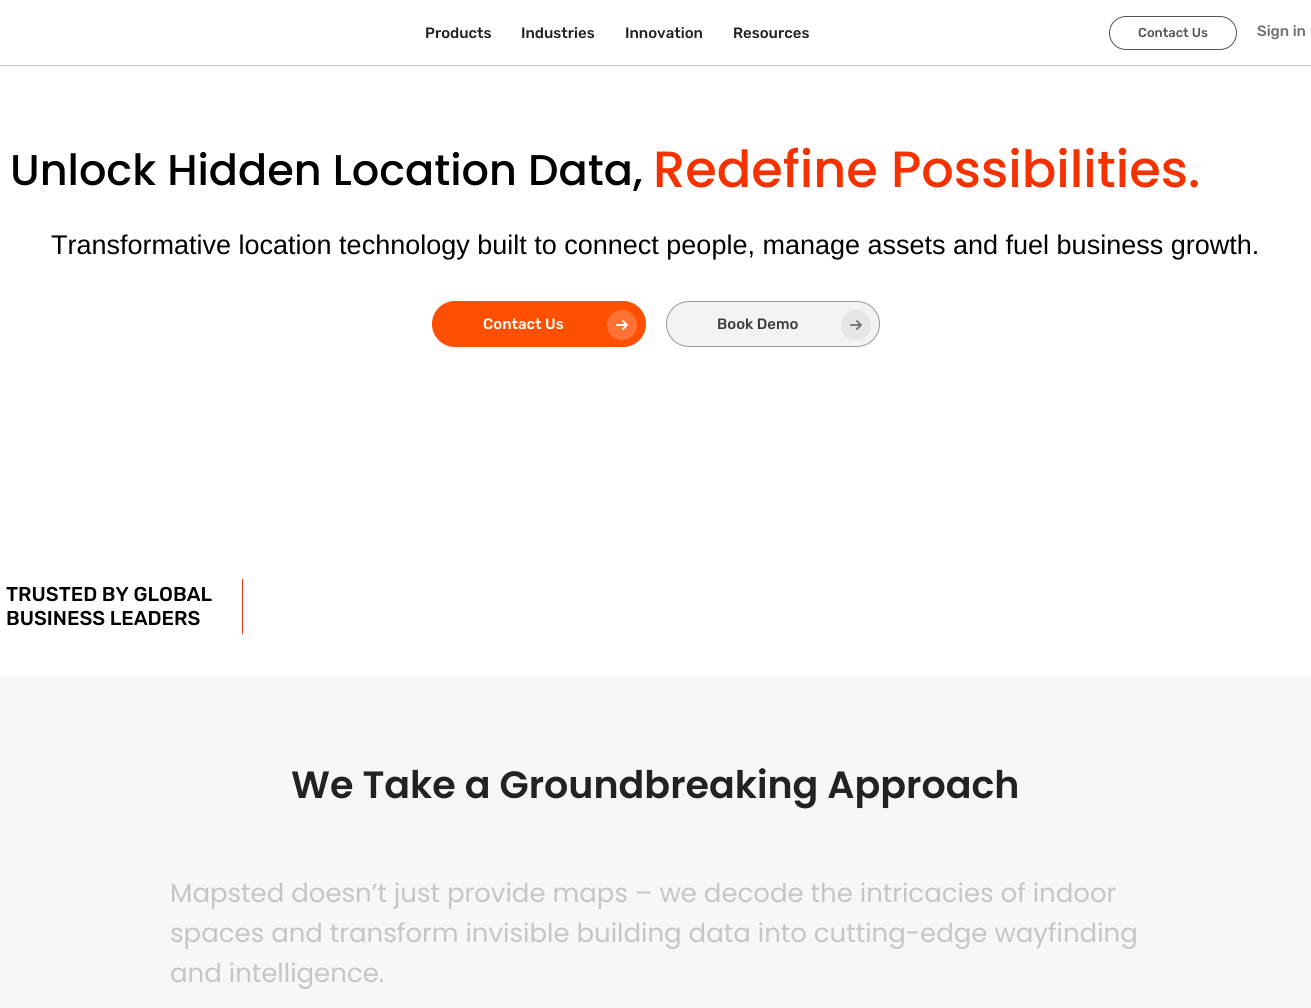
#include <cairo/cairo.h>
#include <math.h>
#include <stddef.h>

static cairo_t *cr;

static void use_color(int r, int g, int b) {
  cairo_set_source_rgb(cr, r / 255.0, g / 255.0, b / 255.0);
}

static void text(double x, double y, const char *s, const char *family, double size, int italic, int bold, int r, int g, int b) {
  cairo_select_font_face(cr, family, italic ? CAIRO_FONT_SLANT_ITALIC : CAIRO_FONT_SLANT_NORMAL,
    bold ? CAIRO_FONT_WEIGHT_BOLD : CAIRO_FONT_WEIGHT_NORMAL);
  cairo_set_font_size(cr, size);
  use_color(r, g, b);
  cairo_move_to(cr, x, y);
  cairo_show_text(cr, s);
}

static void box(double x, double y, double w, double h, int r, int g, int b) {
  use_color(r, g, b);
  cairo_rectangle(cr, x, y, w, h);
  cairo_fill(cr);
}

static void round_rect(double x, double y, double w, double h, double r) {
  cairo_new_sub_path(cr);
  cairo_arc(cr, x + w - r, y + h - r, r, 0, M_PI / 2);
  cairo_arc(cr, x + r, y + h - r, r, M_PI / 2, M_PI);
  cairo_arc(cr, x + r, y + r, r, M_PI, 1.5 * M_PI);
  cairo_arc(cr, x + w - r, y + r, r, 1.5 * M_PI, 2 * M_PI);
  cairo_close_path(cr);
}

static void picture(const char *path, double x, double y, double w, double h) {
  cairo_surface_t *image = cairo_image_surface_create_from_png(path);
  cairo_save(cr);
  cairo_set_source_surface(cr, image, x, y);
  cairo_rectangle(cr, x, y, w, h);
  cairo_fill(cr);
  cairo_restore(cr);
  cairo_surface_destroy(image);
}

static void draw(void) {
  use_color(255, 255, 255);
  cairo_paint(cr);
  box(0, 65, 1311, 1, 201, 201, 201);
  round_rect(1109.5, 16.5, 127, 33, 16.5);
  use_color(85, 85, 85);
  cairo_set_line_width(cr, 1);
  cairo_stroke(cr);
  use_color(255, 79, 1);
  round_rect(432.5, 301.5, 213, 45, 22.5);
  cairo_fill_preserve(cr);
  cairo_stroke(cr);
  use_color(255, 114, 52);
  cairo_arc(cr, 622, 325, 15, 0, 2 * M_PI);
  cairo_fill(cr);
  picture("img_01.png", 616, 320, 12, 10);
  use_color(243, 243, 243);
  round_rect(666.5, 301.5, 213, 45, 22.5);
  cairo_fill_preserve(cr);
  use_color(152, 152, 152);
  cairo_stroke(cr);
  use_color(230, 230, 230);
  cairo_arc(cr, 856, 325, 15, 0, 2 * M_PI);
  cairo_fill(cr);
  picture("img_02.png", 850, 320, 12, 10);
  box(242, 579, 1, 55, 229, 62, 20);
  box(0, 676, 1311, 332, 247, 247, 247);
  text(425, 38, "Products", "Rubik Medium", 15, 0, 0, 34, 34, 34);
  text(521, 38, "Industries", "Rubik Medium", 15, 0, 0, 34, 34, 34);
  text(625, 38, "Innovation", "Rubik Medium", 15, 0, 0, 34, 34, 34);
  text(733, 38, "Resources", "Rubik Medium", 15, 0, 0, 34, 34, 34);
  text(1138, 37, "Contact Us", "Rubik Medium", 13, 0, 0, 85, 85, 85);
  text(1257, 36, "Sign in", "Rubik Medium", 15, 0, 0, 114, 114, 114);
  text(10, 185, "Unlock Hidden Location Data,", "Poppins Medium", 43, 0, 0, 0, 0, 0);
  text(653, 187, "Redefine Possibilities.", "Poppins Medium", 51, 0, 0, 245, 49, 0);
  text(51, 254, "Transformative location technology built to connect people, manage assets and fuel business growth.", "Liberation Sans", 27, 0, 0, 0, 0, 0);
  text(483, 329, "Contact Us", "Rubik Medium", 15, 0, 0, 255, 255, 255);
  text(717, 329, "Book Demo", "Rubik Medium", 15, 0, 0, 62, 62, 62);
  text(6, 601, "TRUSTED BY GLOBAL", "Rubik Medium", 20, 0, 0, 0, 0, 0);
  text(6, 625, "BUSINESS LEADERS", "Rubik Medium", 20, 0, 0, 0, 0, 0);
  text(291, 798, "We Take a Groundbreaking Approach", "Poppins SemiBold", 38, 0, 0, 34, 34, 34);
  text(170, 902, "Mapsted doesn’t just provide maps – we decode the intricacies of indoor", "Poppins", 26, 0, 0, 198, 198, 198);
  text(170, 942, "spaces and transform invisible building data into cutting-edge wayfinding", "Poppins", 26, 0, 0, 198, 198, 198);
  text(170, 982, "and intelligence.", "Poppins", 26, 0, 0, 198, 198, 198);
}

int main(void) {
  cairo_surface_t *surface = cairo_image_surface_create(CAIRO_FORMAT_RGB24, 1311, 1008);
  cr = cairo_create(surface);
  cairo_font_options_t *options = cairo_font_options_create();
  cairo_font_options_set_hint_metrics(options, CAIRO_HINT_METRICS_OFF);
  cairo_font_options_set_hint_style(options, CAIRO_HINT_STYLE_NONE);
  cairo_set_font_options(cr, options);
  cairo_set_miter_limit(cr, 4);
  draw();
  cairo_surface_write_to_png(surface, "out.png");
  cairo_font_options_destroy(options);
  cairo_destroy(cr);
  cairo_surface_destroy(surface);
  return 0;
}
